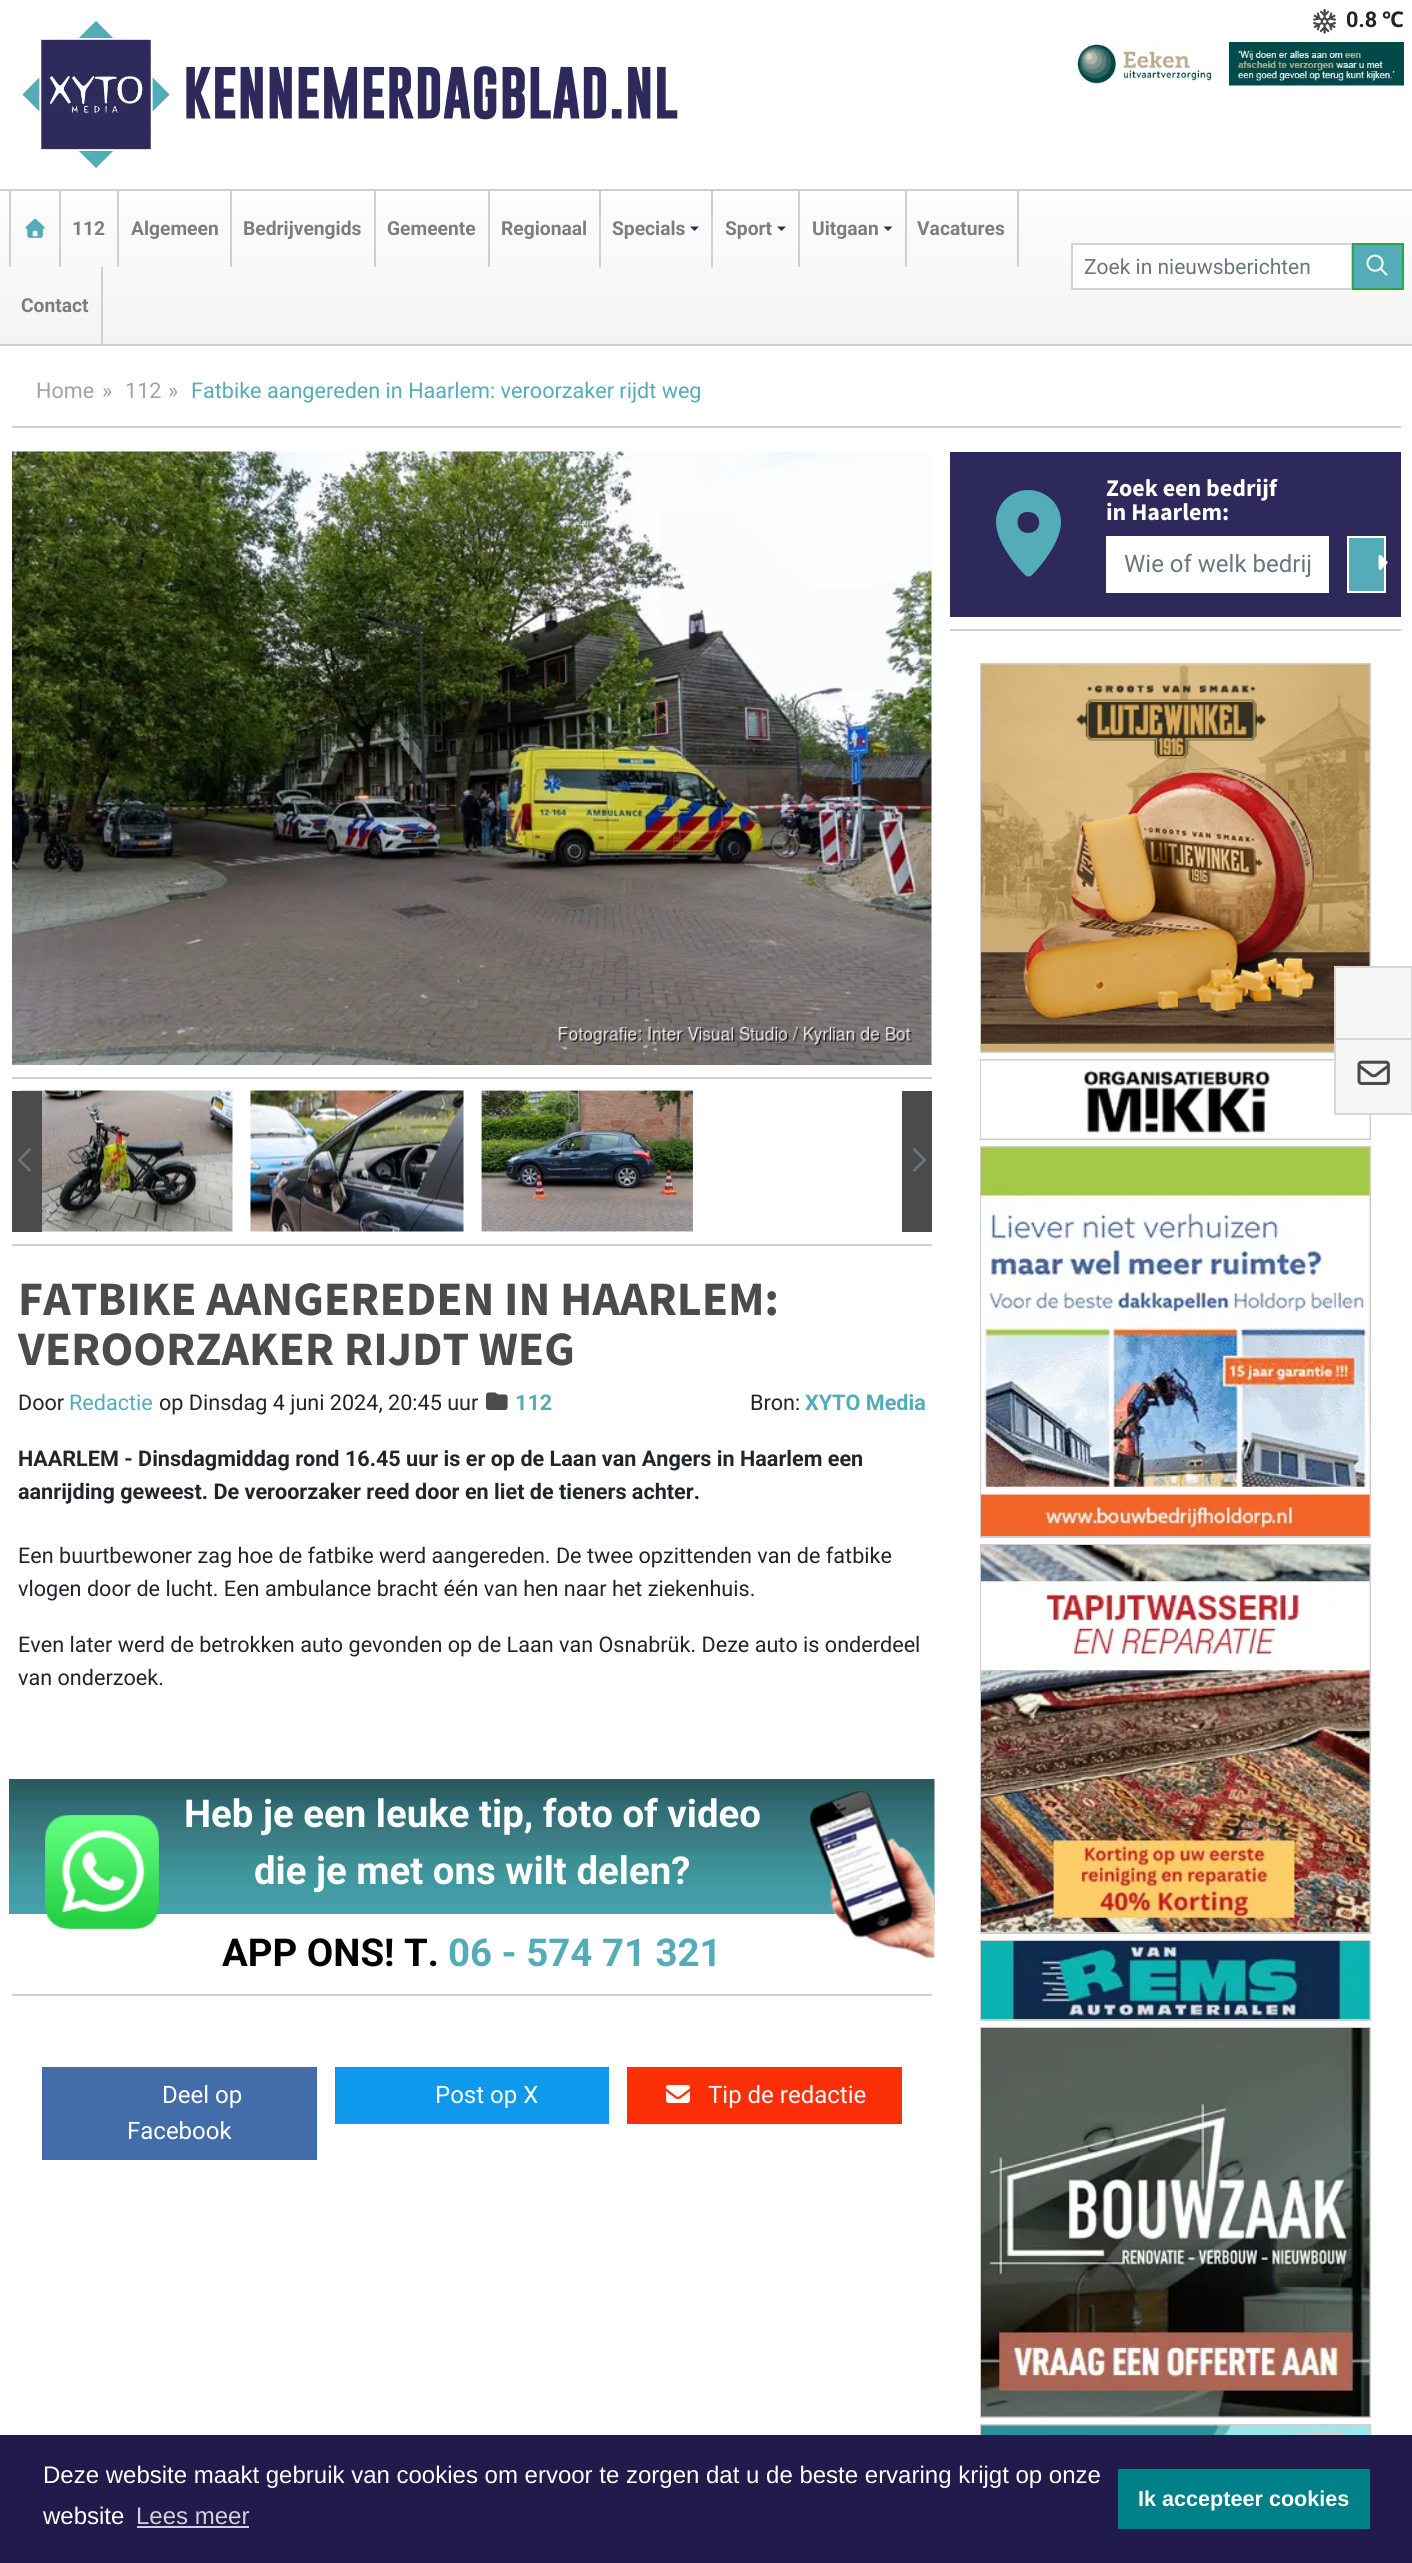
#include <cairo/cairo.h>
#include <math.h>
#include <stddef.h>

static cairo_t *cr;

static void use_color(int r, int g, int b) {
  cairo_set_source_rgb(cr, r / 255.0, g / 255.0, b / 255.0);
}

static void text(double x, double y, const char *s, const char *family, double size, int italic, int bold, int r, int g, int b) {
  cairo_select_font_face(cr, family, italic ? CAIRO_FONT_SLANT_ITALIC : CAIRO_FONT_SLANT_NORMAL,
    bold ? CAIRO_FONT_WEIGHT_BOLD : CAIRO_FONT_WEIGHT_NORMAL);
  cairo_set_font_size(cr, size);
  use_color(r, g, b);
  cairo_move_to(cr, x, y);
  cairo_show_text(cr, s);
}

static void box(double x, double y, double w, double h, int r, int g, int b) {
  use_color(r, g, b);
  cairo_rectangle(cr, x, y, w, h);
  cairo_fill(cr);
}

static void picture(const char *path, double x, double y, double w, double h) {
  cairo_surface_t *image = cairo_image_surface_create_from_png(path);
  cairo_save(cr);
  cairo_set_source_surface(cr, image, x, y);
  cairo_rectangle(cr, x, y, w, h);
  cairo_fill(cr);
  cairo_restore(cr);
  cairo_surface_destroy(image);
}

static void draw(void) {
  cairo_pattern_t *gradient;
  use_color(255, 255, 255);
  cairo_paint(cr);
  picture("img_01.png", 1313, 9, 23, 25);
  picture("img_02.png", 1075, 42, 329, 44);
  picture("img_03.png", 20, 21, 151, 147);
  gradient = cairo_pattern_create_linear(707, 190, 707, 344);
  cairo_pattern_add_color_stop_rgba(gradient, 0, 0.992, 0.992, 0.992, 1);
  cairo_pattern_add_color_stop_rgba(gradient, 1, 0.957, 0.957, 0.949, 1);
  cairo_set_source(cr, gradient);
  cairo_pattern_destroy(gradient);
  cairo_rectangle(cr, 0, 197, 1412, 147);
  cairo_fill(cr);
  box(0, 189, 1412, 2, 207, 207, 207);
  box(0, 344, 1412, 2, 207, 207, 207);
  box(59, 191, 2, 76, 207, 207, 207);
  box(9, 191, 2, 76, 207, 207, 207);
  picture("img_04.png", 25, 218, 20, 20);
  box(117, 191, 2, 76, 207, 207, 207);
  box(230, 191, 2, 76, 207, 207, 207);
  box(374, 191, 2, 76, 207, 207, 207);
  box(488, 191, 2, 76, 207, 207, 207);
  box(599, 191, 2, 76, 207, 207, 207);
  box(711, 191, 2, 76, 207, 207, 207);
  use_color(45, 42, 91);
  cairo_new_path(cr);
  cairo_move_to(cr, 690, 226.5);
  cairo_line_to(cr, 699, 226.5);
  cairo_line_to(cr, 694.5, 231);
  cairo_close_path(cr);
  cairo_fill(cr);
  box(798, 191, 2, 76, 207, 207, 207);
  use_color(45, 42, 91);
  cairo_new_path(cr);
  cairo_move_to(cr, 777, 226.5);
  cairo_line_to(cr, 786, 226.5);
  cairo_line_to(cr, 781.5, 231);
  cairo_close_path(cr);
  cairo_fill(cr);
  box(905, 191, 2, 76, 207, 207, 207);
  use_color(45, 42, 91);
  cairo_new_path(cr);
  cairo_move_to(cr, 883.5, 226.5);
  cairo_line_to(cr, 892.5, 226.5);
  cairo_line_to(cr, 888, 231);
  cairo_close_path(cr);
  cairo_fill(cr);
  box(1017, 191, 2, 76, 207, 207, 207);
  box(101, 267, 2, 77, 207, 207, 207);
  use_color(255, 255, 255);
  cairo_rectangle(cr, 1072, 244, 280, 45);
  cairo_fill_preserve(cr);
  use_color(206, 212, 218);
  cairo_stroke(cr);
  use_color(83, 172, 184);
  cairo_rectangle(cr, 1353, 244, 50, 45);
  cairo_fill_preserve(cr);
  use_color(40, 167, 69);
  cairo_stroke(cr);
  picture("img_05.png", 1366, 254, 22, 22);
  box(12, 426, 1389, 2, 207, 207, 207);
  box(950, 452, 451, 165, 45, 42, 91);
  use_color(83, 172, 184);
  cairo_new_path(cr);
  cairo_move_to(cr, 996, 522);
  cairo_curve_to(cr, 996, 504, 1011, 490, 1028, 490);
  cairo_curve_to(cr, 1046, 490, 1061, 504, 1061, 522);
  cairo_curve_to(cr, 1061, 542, 1041, 566, 1032, 575);
  cairo_curve_to(cr, 1030, 577, 1027, 577, 1025, 575);
  cairo_curve_to(cr, 1016, 566, 996, 542, 996, 522);
  cairo_close_path(cr);
  cairo_move_to(cr, 1028, 533);
  cairo_curve_to(cr, 1043, 533, 1043, 512, 1028, 512);
  cairo_curve_to(cr, 1014, 511, 1014, 533, 1028, 533);
  cairo_close_path(cr);
  cairo_fill(cr);
  box(1106, 536, 223, 57, 255, 255, 255);
  use_color(83, 172, 184);
  cairo_rectangle(cr, 1348, 537, 37, 55);
  cairo_fill_preserve(cr);
  use_color(255, 255, 255);
  cairo_stroke(cr);
  picture("img_06.png", 1378, 555, 10, 15);
  box(950, 629, 451, 2, 207, 207, 207);
  cairo_rectangle(cr, 981, 664, 389, 388);
  cairo_stroke(cr);
  picture("img_07.png", 981, 664, 389, 388);
  cairo_rectangle(cr, 981, 1060, 389, 79);
  cairo_stroke(cr);
  picture("img_08.png", 981, 1060, 389, 79);
  cairo_rectangle(cr, 981, 1147, 389, 390);
  cairo_stroke(cr);
  picture("img_09.png", 981, 1147, 389, 389);
  cairo_rectangle(cr, 981, 1545, 389, 388);
  cairo_stroke(cr);
  picture("img_10.png", 981, 1545, 389, 387);
  cairo_rectangle(cr, 981, 1941, 389, 79);
  cairo_stroke(cr);
  picture("img_11.png", 981, 1941, 389, 78);
  cairo_rectangle(cr, 981, 2028, 389, 389);
  cairo_stroke(cr);
  picture("img_12.png", 981, 2028, 389, 389);
  cairo_rectangle(cr, 981, 2425, 389, 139);
  cairo_stroke(cr);
  picture("img_13.png", 981, 2425, 389, 10);
  box(12, 1244, 920, 2, 207, 207, 207);
  picture("img_14.png", 12, 451, 920, 614);
  box(12, 1077, 920, 2, 207, 207, 207);
  picture("img_15.png", 21, 1090, 212, 142);
  picture("img_16.png", 250, 1090, 214, 142);
  picture("img_17.png", 481, 1090, 212, 142);
  box(12, 1091, 30, 141, 76, 75, 75);
  picture("img_18.png", 18, 1148, 13, 24);
  box(902, 1091, 30, 141, 76, 75, 75);
  picture("img_19.png", 912, 1148, 14, 24);
  picture("img_20.png", 486, 1392, 22, 18);
  picture("img_21.png", 9, 1779, 926, 135);
  picture("img_22.png", 45, 1815, 114, 114);
  picture("img_23.png", 810, 1791, 125, 167);
  box(12, 1994, 920, 2, 207, 207, 207);
  box(42, 2067, 275, 93, 67, 109, 169);
  box(335, 2067, 274, 57, 14, 153, 236);
  box(627, 2067, 275, 57, 253, 47, 8);
  picture("img_24.png", 666, 2085, 24, 18);
  use_color(246, 246, 246);
  cairo_rectangle(cr, 1335, 967, 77, 72);
  cairo_fill_preserve(cr);
  use_color(215, 215, 215);
  cairo_stroke(cr);
  use_color(246, 246, 246);
  cairo_rectangle(cr, 1335, 1039, 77, 75);
  cairo_fill_preserve(cr);
  use_color(215, 215, 215);
  cairo_stroke(cr);
  picture("img_25.png", 1357, 1060, 33, 25);
  box(0, 2435, 1412, 128, 32, 27, 74);
  box(137, 2526, 112, 2, 210, 209, 219);
  box(1118, 2469, 252, 60, 0, 129, 138);
  text(1346, 27, "0.8", "Roboto", 21.6, 0, 1, 33, 37, 41);
  text(1382, 27, "℃", "Noto Sans", 21.6, 0, 1, 33, 37, 41);
  text(183, 118, "KENNEMERDAGBLAD.NL", "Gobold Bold", 52.75, 0, 1, 45, 42, 91);
  text(72, 235, "112", "Roboto", 19.25, 0, 1, 125, 125, 125);
  text(131, 235, "Algemeen", "Roboto", 19.25, 0, 1, 125, 125, 125);
  text(243, 235, "Bedrijvengids", "Roboto", 19.25, 0, 1, 125, 125, 125);
  text(387, 235, "Gemeente", "Roboto", 19.25, 0, 1, 125, 125, 125);
  text(501, 235, "Regionaal", "Roboto", 19.25, 0, 1, 125, 125, 125);
  text(612, 235, "Specials", "Roboto", 19.25, 0, 1, 125, 125, 125);
  text(725, 235, "Sport", "Roboto", 19.25, 0, 1, 125, 125, 125);
  text(812, 235, "Uitgaan", "Roboto", 19.25, 0, 1, 125, 125, 125);
  text(917, 235, "Vacatures", "Roboto", 19.25, 0, 1, 125, 125, 125);
  text(21, 312, "Contact", "Roboto", 19.25, 0, 1, 125, 125, 125);
  text(1084, 274, "Zoek in nieuwsberichten", "Roboto", 21, 0, 0, 108, 117, 125);
  text(36, 398, "Home", "Roboto", 21.6, 0, 0, 162, 162, 162);
  text(102, 398, "»", "Roboto", 21.6, 0, 0, 162, 162, 162);
  text(125, 398, "112", "Roboto", 21.6, 0, 0, 162, 162, 162);
  text(168, 398, "»", "Roboto", 21.6, 0, 0, 162, 162, 162);
  text(191, 398, "Fatbike aangereden in Haarlem: veroorzaker rijdt weg", "Roboto", 21.6, 0, 0, 83, 172, 184);
  text(1106, 496, "Zoek een bedrijf", "Source Sans Pro", 24, 0, 1, 255, 255, 255);
  text(1106, 520, "in Haarlem:", "Source Sans Pro", 24, 0, 1, 255, 255, 255);
  text(1124, 572, "Wie of welk bedrij", "Roboto", 24, 0, 0, 108, 117, 125);
  text(18, 1315, "FATBIKE AANGEREDEN IN HAARLEM:", "Source Sans Pro", 48, 0, 1, 76, 75, 75);
  text(18, 1365, "VEROORZAKER RIJDT WEG", "Source Sans Pro", 48, 0, 1, 76, 75, 75);
  text(18, 1410, "Door", "Roboto", 21.6, 0, 0, 33, 37, 41);
  text(69, 1410, "Redactie", "Roboto", 21.6, 0, 0, 83, 172, 184);
  text(159, 1410, "op Dinsdag 4 juni 2024, 20:45 uur", "Roboto", 21.6, 0, 0, 33, 37, 41);
  text(515, 1410, "112", "Roboto", 21.6, 0, 1, 83, 172, 184);
  text(750, 1410, "Bron:", "Roboto", 21.6, 0, 0, 33, 37, 41);
  text(805, 1410, "XYTO Media", "Roboto", 21.6, 0, 1, 83, 172, 184);
  text(18, 1466, "HAARLEM - Dinsdagmiddag rond 16.45 uur is er op de Laan van Angers in Haarlem een", "Roboto", 21.6, 0, 1, 33, 37, 41);
  text(18, 1499, "aanrijding geweest. De veroorzaker reed door en liet de tieners achter.", "Roboto", 21.6, 0, 1, 33, 37, 41);
  text(18, 1563, "Een buurtbewoner zag hoe de fatbike werd aangereden. De twee opzittenden van de fatbike", "Roboto", 21.6, 0, 0, 33, 37, 41);
  text(18, 1596, "vlogen door de lucht. Een ambulance bracht één van hen naar het ziekenhuis.", "Roboto", 21.6, 0, 0, 33, 37, 41);
  text(18, 1652, "Even later werd de betrokken auto gevonden op de Laan van Osnabrük. Deze auto is onderdeel", "Roboto", 21.6, 0, 0, 33, 37, 41);
  text(18, 1685, "van onderzoek.", "Roboto", 21.6, 0, 0, 33, 37, 41);
  text(184, 1827, "Heb je een leuke tip, foto of video", "Roboto", 38.4, 0, 1, 255, 255, 255);
  text(254, 1884, "die je met ons wilt delen?", "Roboto", 38.4, 0, 1, 255, 255, 255);
  text(222, 1966, "APP ONS! T.", "Roboto", 38.4, 0, 1, 0, 0, 0);
  text(448, 1966, "06 - 574 71 321", "Roboto", 38.4, 0, 1, 83, 172, 184);
  text(162, 2103, "Deel op", "Roboto", 24, 0, 0, 255, 255, 255);
  text(127, 2139, "Facebook", "Roboto", 24, 0, 0, 255, 255, 255);
  text(435, 2103, "Post op X", "Roboto", 24, 0, 0, 255, 255, 255);
  text(708, 2103, "Tip de redactie", "Roboto", 24, 0, 0, 255, 255, 255);
  text(43, 2483, "Deze website maakt gebruik van cookies om ervoor te zorgen dat u de beste ervaring krijgt op onze", "Liberation Sans", 24, 0, 0, 255, 255, 255);
  text(43, 2524, "website", "Liberation Sans", 24, 0, 0, 255, 255, 255);
  text(136, 2524, "Lees meer", "Liberation Sans", 24, 0, 0, 210, 209, 219);
  text(1138, 2506, "Ik accepteer cookies", "Liberation Sans", 21.6, 0, 1, 255, 255, 255);
}

int main(void) {
  cairo_surface_t *surface = cairo_image_surface_create(CAIRO_FORMAT_RGB24, 1412, 2563);
  cr = cairo_create(surface);
  cairo_font_options_t *options = cairo_font_options_create();
  cairo_font_options_set_hint_metrics(options, CAIRO_HINT_METRICS_OFF);
  cairo_font_options_set_hint_style(options, CAIRO_HINT_STYLE_NONE);
  cairo_set_font_options(cr, options);
  cairo_set_miter_limit(cr, 4);
  draw();
  cairo_surface_write_to_png(surface, "out.png");
  cairo_font_options_destroy(options);
  cairo_destroy(cr);
  cairo_surface_destroy(surface);
  return 0;
}
